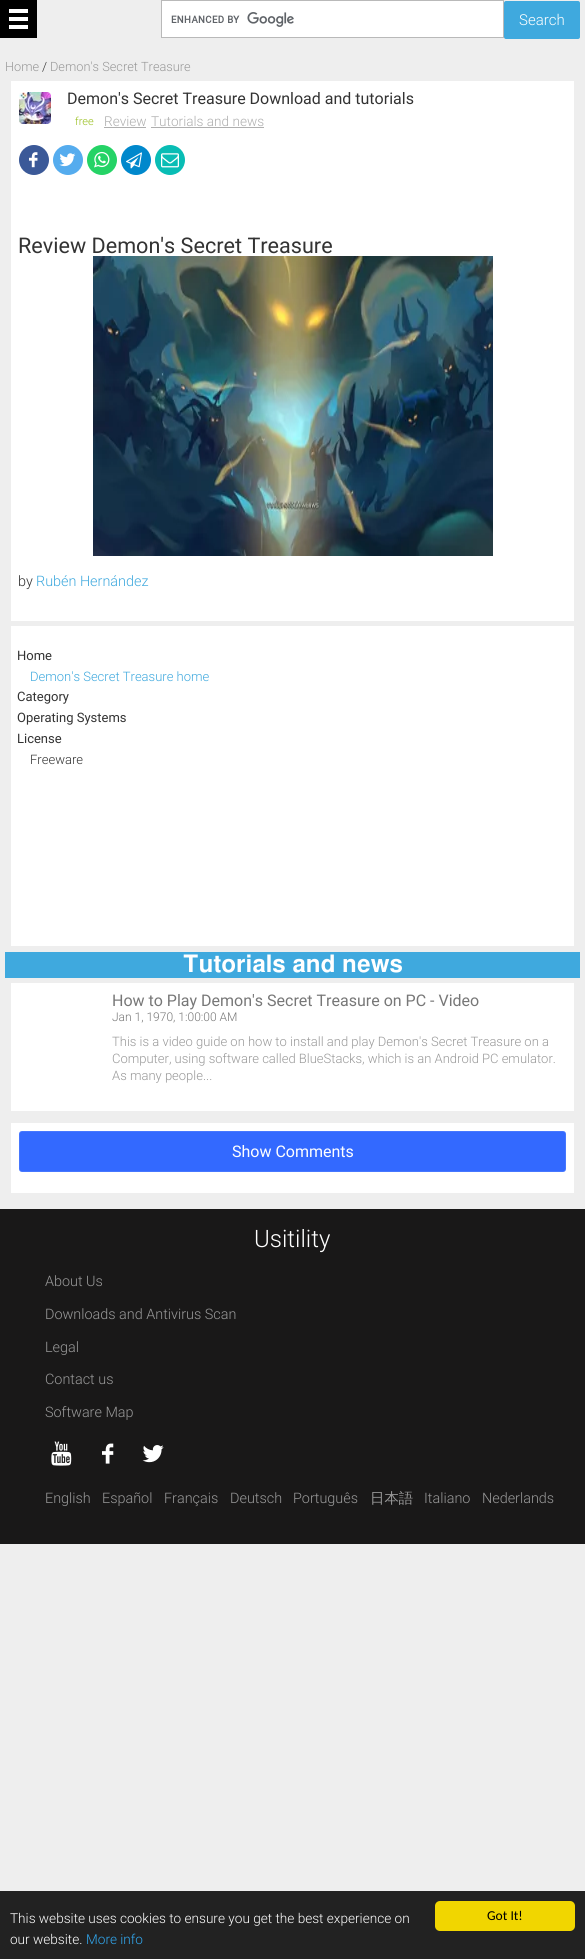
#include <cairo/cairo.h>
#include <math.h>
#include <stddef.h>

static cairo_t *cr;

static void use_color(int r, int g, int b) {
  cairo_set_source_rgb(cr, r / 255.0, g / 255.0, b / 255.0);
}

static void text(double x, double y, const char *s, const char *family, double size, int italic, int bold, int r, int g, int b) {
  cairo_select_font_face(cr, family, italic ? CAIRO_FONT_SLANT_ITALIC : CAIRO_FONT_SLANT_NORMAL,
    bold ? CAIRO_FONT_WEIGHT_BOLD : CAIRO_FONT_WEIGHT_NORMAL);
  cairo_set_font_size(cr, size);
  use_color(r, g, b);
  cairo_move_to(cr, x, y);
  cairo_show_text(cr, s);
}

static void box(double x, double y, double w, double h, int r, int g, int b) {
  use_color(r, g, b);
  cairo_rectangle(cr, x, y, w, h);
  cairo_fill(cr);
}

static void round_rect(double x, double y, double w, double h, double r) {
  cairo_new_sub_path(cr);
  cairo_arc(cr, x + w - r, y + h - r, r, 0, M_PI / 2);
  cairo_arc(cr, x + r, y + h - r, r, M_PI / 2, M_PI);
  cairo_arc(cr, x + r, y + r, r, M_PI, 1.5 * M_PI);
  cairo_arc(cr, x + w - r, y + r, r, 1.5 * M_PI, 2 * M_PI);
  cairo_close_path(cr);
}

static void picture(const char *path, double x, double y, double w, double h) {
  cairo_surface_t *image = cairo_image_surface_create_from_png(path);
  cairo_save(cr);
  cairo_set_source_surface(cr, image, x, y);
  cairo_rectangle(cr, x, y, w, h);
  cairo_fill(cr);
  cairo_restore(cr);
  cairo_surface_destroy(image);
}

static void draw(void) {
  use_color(238, 238, 238);
  cairo_paint(cr);
  box(0, 0, 37, 38, 0, 0, 0);
  box(9, 17, 19, 4, 255, 255, 255);
  box(9, 9, 19, 4, 255, 255, 255);
  box(9, 25, 19, 4, 255, 255, 255);
  box(162, 1, 341, 36, 255, 255, 255);
  picture("img_01.png", 171, 12, 123, 15);
  cairo_rectangle(cr, 161.5, 0.5, 342, 37);
  use_color(185, 185, 185);
  cairo_set_line_width(cr, 1);
  cairo_stroke(cr);
  use_color(63, 169, 222);
  round_rect(504, 1, 76, 38, 2);
  cairo_fill(cr);
  box(11, 81, 563, 540, 255, 255, 255);
  picture("img_02.png", 19, 92, 32, 32);
  box(104, 127, 42, 1, 175, 175, 175);
  box(151, 127, 113, 1, 175, 175, 175);
  use_color(59, 89, 152);
  cairo_arc(cr, 34, 160, 15, 0, 2 * M_PI);
  cairo_fill(cr);
  picture("img_03.png", 29, 152, 9, 16);
  use_color(85, 172, 238);
  cairo_arc(cr, 68, 160, 15, 0, 2 * M_PI);
  cairo_fill(cr);
  picture("img_04.png", 59, 153, 17, 14);
  use_color(37, 211, 102);
  cairo_arc(cr, 102, 160, 15, 0, 2 * M_PI);
  cairo_fill(cr);
  picture("img_05.png", 94, 151, 16, 17);
  use_color(0, 136, 204);
  cairo_arc(cr, 136, 160, 15, 0, 2 * M_PI);
  cairo_fill(cr);
  picture("img_06.png", 126, 152, 16, 17);
  use_color(9, 189, 181);
  cairo_arc(cr, 170, 160, 15, 0, 2 * M_PI);
  cairo_fill(cr);
  picture("img_07.png", 161, 153, 18, 15);
  picture("img_08.png", 93, 256, 400, 300);
  box(11, 626, 563, 320, 255, 255, 255);
  box(5, 952, 575, 26, 63, 169, 222);
  box(11, 983, 563, 128, 255, 255, 255);
  box(11, 1123, 563, 70, 255, 255, 255);
  use_color(51, 105, 255);
  round_rect(19, 1131, 547, 41, 3);
  cairo_fill(cr);
  round_rect(19.4, 1131.4, 546.2, 40.2, 2.6);
  cairo_set_source_rgba(cr, 1, 1, 1, 0.12);
  cairo_set_line_width(cr, 0.8);
  cairo_stroke(cr);
  box(0, 1209, 585, 335, 25, 24, 24);
  picture("img_09.png", 51, 1441, 21, 25);
  picture("img_10.png", 102, 1443, 12, 21);
  picture("img_11.png", 142, 1445, 22, 18);
  box(0, 1891, 585, 68, 34, 34, 34);
  use_color(241, 214, 0);
  round_rect(435, 1901, 140, 30, 5);
  cairo_fill(cr);
  text(519, 25, "Search", "Roboto Light", 15, 0, 0, 255, 255, 255);
  text(5, 71, "Home", "Roboto Light", 12.75, 0, 0, 153, 153, 153);
  text(42, 71, "/", "Roboto Light", 12.75, 0, 0, 51, 51, 51);
  text(50, 71, "Demon's Secret Treasure", "Roboto Light", 12.75, 0, 0, 153, 153, 153);
  text(67, 104, "Demon's Secret Treasure Download and tutorials", "Roboto", 16, 0, 0, 51, 51, 51);
  text(75, 125, "free", "Roboto Light", 11, 0, 0, 151, 190, 27);
  text(104, 126, "Review", "Roboto Light", 13.6, 0, 0, 175, 175, 175);
  text(151, 126, "Tutorials and news", "Roboto Light", 13.6, 0, 0, 175, 175, 175);
  text(18, 253, "Review Demon's Secret Treasure", "Roboto", 21.6, 0, 0, 51, 51, 51);
  text(18, 586, "by", "Roboto Light", 14.4, 0, 0, 51, 51, 51);
  text(36, 586, "Rubén Hernández", "Roboto Light", 14.4, 0, 0, 63, 169, 222);
  text(17, 660, "Home", "Roboto", 13, 0, 0, 51, 51, 51);
  text(30, 681, "Demon's Secret Treasure home", "Roboto Light", 13, 0, 0, 63, 169, 222);
  text(17, 701, "Category", "Roboto", 13, 0, 0, 51, 51, 51);
  text(17, 722, "Operating Systems", "Roboto", 13, 0, 0, 51, 51, 51);
  text(17, 743, "License", "Roboto", 13, 0, 0, 51, 51, 51);
  text(30, 764, "Freeware", "Roboto Light", 13, 0, 0, 51, 51, 51);
  text(183, 972, "Tutorials and news", "FreeSans SemiBold", 24, 0, 0, 255, 255, 255);
  text(112, 1006, "How to Play Demon's Secret Treasure on PC - Video", "Roboto", 16, 0, 0, 119, 119, 119);
  text(112, 1021, "Jan 1, 1970, 1:00:00 AM", "Roboto Light", 12, 0, 0, 119, 119, 119);
  text(112, 1046, "This is a video guide on how to install and play Demon's Secret Treasure on a", "Roboto Light", 13, 0, 0, 153, 153, 153);
  text(112, 1063, "Computer, using software called BlueStacks, which is an Android PC emulator.", "Roboto Light", 13, 0, 0, 153, 153, 153);
  text(112, 1080, "As many people...", "Roboto Light", 13, 0, 0, 153, 153, 153);
  text(232, 1157, "Show Comments", "Roboto", 16, 0, 0, 255, 255, 255);
  text(254, 1247, "Usitility", "Roboto Light", 24, 0, 0, 255, 255, 255);
  text(45, 1286, "About Us", "Roboto Light", 14.4, 0, 0, 153, 153, 153);
  text(45, 1319, "Downloads and Antivirus Scan", "Roboto Light", 14.4, 0, 0, 153, 153, 153);
  text(45, 1352, "Legal", "Roboto Light", 14.4, 0, 0, 153, 153, 153);
  text(45, 1384, "Contact us", "Roboto Light", 14.4, 0, 0, 153, 153, 153);
  text(45, 1417, "Software Map", "Roboto Light", 14.4, 0, 0, 153, 153, 153);
  text(45, 1503, "English", "Roboto Light", 14.4, 0, 0, 153, 153, 153);
  text(102, 1503, "Español", "Roboto Light", 14.4, 0, 0, 153, 153, 153);
  text(164, 1503, "Français", "Roboto Light", 14.4, 0, 0, 153, 153, 153);
  text(230, 1503, "Deutsch", "Roboto Light", 14.4, 0, 0, 153, 153, 153);
  text(293, 1503, "Português", "Roboto Light", 14.4, 0, 0, 153, 153, 153);
  text(370, 1503, "日本語", "WenQuanYi Zen Hei Medium", 14.4, 0, 0, 153, 153, 153);
  text(424, 1503, "Italiano", "Roboto Light", 14.4, 0, 0, 153, 153, 153);
  text(482, 1503, "Nederlands", "Roboto Light", 14.4, 0, 0, 153, 153, 153);
  text(10, 1923, "This website uses cookies to ensure you get the best experience on", "Roboto Light", 13.6, 0, 0, 255, 255, 255);
  text(10, 1944, "our website.", "Roboto Light", 13.6, 0, 0, 255, 255, 255);
  text(86, 1944, "More info", "Roboto Light", 13.6, 0, 0, 49, 168, 240);
  text(487, 1920, "Got It!", "Carlito", 13.6, 0, 0, 0, 0, 0);
}

int main(void) {
  cairo_surface_t *surface = cairo_image_surface_create(CAIRO_FORMAT_RGB24, 585, 1959);
  cr = cairo_create(surface);
  cairo_font_options_t *options = cairo_font_options_create();
  cairo_font_options_set_hint_metrics(options, CAIRO_HINT_METRICS_OFF);
  cairo_font_options_set_hint_style(options, CAIRO_HINT_STYLE_NONE);
  cairo_set_font_options(cr, options);
  cairo_set_miter_limit(cr, 4);
  draw();
  cairo_surface_write_to_png(surface, "out.png");
  cairo_font_options_destroy(options);
  cairo_destroy(cr);
  cairo_surface_destroy(surface);
  return 0;
}
